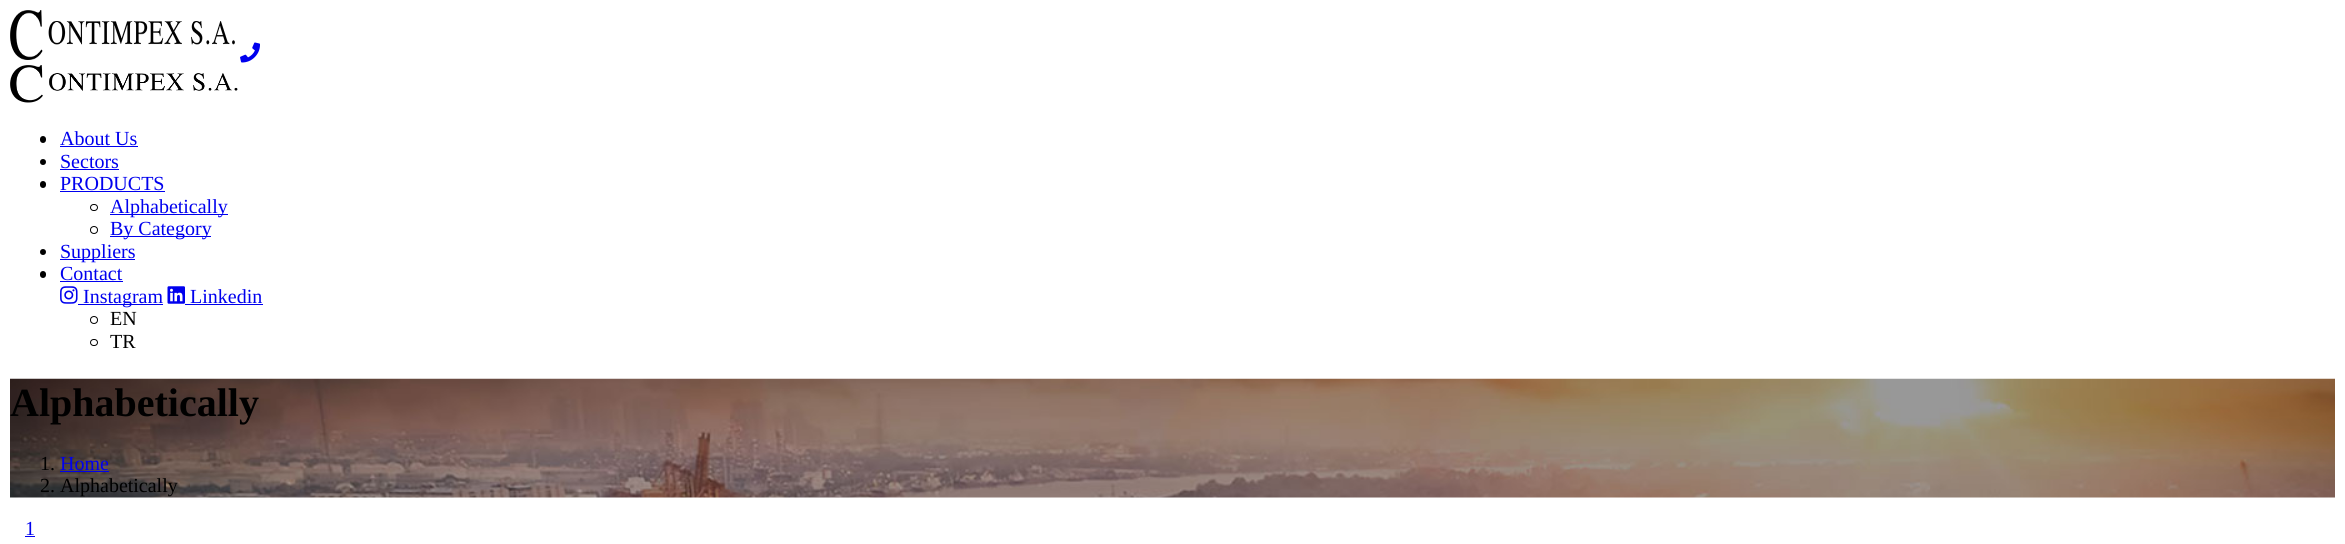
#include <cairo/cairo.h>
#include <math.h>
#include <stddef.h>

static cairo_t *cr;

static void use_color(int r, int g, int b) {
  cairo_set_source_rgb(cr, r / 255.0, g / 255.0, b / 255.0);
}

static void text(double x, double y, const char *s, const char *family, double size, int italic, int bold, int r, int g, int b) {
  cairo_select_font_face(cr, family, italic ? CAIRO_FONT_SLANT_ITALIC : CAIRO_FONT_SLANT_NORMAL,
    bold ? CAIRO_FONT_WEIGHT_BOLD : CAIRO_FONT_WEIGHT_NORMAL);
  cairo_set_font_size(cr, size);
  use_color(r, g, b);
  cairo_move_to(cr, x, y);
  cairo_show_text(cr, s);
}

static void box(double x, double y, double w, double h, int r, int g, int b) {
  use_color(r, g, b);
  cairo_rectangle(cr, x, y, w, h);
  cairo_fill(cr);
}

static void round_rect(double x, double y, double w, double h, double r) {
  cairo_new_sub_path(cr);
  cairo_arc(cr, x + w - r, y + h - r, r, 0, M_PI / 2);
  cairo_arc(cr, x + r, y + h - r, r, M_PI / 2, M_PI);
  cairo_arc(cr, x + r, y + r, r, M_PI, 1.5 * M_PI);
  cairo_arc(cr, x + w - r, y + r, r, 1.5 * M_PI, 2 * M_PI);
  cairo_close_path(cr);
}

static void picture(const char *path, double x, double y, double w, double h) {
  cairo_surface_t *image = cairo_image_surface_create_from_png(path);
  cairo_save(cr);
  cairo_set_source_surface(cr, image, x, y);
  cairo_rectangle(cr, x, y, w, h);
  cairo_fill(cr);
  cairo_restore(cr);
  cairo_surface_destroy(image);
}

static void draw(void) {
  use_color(255, 255, 255);
  cairo_paint(cr);
  picture("img_01.png", 10, 10, 225, 50);
  picture("img_02.png", 240, 42, 20, 21);
  picture("img_03.png", 10, 65, 228, 38);
  use_color(0, 0, 0);
  round_rect(40, 136, 6, 7, 3);
  cairo_fill(cr);
  box(60, 146, 78, 1, 0, 0, 238);
  use_color(0, 0, 0);
  cairo_arc(cr, 43, 162, 3, 0, 2 * M_PI);
  cairo_fill(cr);
  box(60, 169, 59, 1, 0, 0, 238);
  use_color(0, 0, 0);
  round_rect(40, 181, 6, 7, 3);
  cairo_fill(cr);
  box(60, 191, 105, 1, 0, 0, 238);
  round_rect(90.5, 204.5, 7, 6, 3);
  use_color(0, 0, 0);
  cairo_set_line_width(cr, 1);
  cairo_stroke(cr);
  box(110, 214, 118, 1, 0, 0, 238);
  cairo_arc(cr, 94, 230, 3.5, 0, 2 * M_PI);
  use_color(0, 0, 0);
  cairo_stroke(cr);
  box(110, 236, 101, 1, 0, 0, 238);
  use_color(0, 0, 0);
  cairo_arc(cr, 43, 252, 3, 0, 2 * M_PI);
  cairo_fill(cr);
  box(60, 259, 75, 1, 0, 0, 238);
  use_color(0, 0, 0);
  round_rect(40, 271, 6, 7, 3);
  cairo_fill(cr);
  box(60, 281, 63, 1, 0, 0, 238);
  picture("img_04.png", 60, 286, 18, 18);
  box(78, 304, 85, 1, 0, 0, 238);
  picture("img_05.png", 167, 286, 18, 18);
  box(185, 304, 78, 1, 0, 0, 238);
  cairo_arc(cr, 94, 320, 3.5, 0, 2 * M_PI);
  use_color(0, 0, 0);
  cairo_stroke(cr);
  round_rect(90.5, 339.5, 7, 6, 3);
  cairo_stroke(cr);
  picture("img_06.png", 10, 378, 2325, 120);
  box(60, 471, 49, 1, 0, 0, 238);
  box(25, 536, 10, 1, 0, 0, 238);
  text(60, 145, "About Us", "Liberation Serif", 20, 0, 0, 0, 0, 238);
  text(60, 168, "Sectors", "Liberation Serif", 20, 0, 0, 0, 0, 238);
  text(60, 190, "PRODUCTS", "Liberation Serif", 20, 0, 0, 0, 0, 238);
  text(110, 213, "Alphabetically", "Liberation Serif", 20, 0, 0, 0, 0, 238);
  text(110, 235, "By Category", "Liberation Serif", 20, 0, 0, 0, 0, 238);
  text(60, 258, "Suppliers", "Liberation Serif", 20, 0, 0, 0, 0, 238);
  text(60, 280, "Contact", "Liberation Serif", 20, 0, 0, 0, 0, 238);
  text(83, 303, "Instagram", "Liberation Serif", 20, 0, 0, 0, 0, 238);
  text(190, 303, "Linkedin", "Liberation Serif", 20, 0, 0, 0, 0, 238);
  text(110, 325, "EN", "Liberation Serif", 20, 0, 0, 0, 0, 0);
  text(110, 348, "TR", "Liberation Serif", 20, 0, 0, 0, 0, 0);
  text(10, 416, "Alphabetically", "Liberation Serif", 40, 0, 1, 0, 0, 0);
  text(40, 470, "1.", "Liberation Serif", 20, 0, 0, 0, 0, 0);
  text(60, 470, "Home", "Liberation Serif", 20, 0, 0, 0, 0, 238);
  text(40, 492, "2. Alphabetically", "Liberation Serif", 20, 0, 0, 0, 0, 0);
  text(25, 535, "1", "Liberation Serif", 20, 0, 0, 0, 0, 238);
}

int main(void) {
  cairo_surface_t *surface = cairo_image_surface_create(CAIRO_FORMAT_RGB24, 2345, 544);
  cr = cairo_create(surface);
  cairo_font_options_t *options = cairo_font_options_create();
  cairo_font_options_set_hint_metrics(options, CAIRO_HINT_METRICS_OFF);
  cairo_font_options_set_hint_style(options, CAIRO_HINT_STYLE_NONE);
  cairo_set_font_options(cr, options);
  cairo_set_miter_limit(cr, 4);
  draw();
  cairo_surface_write_to_png(surface, "out.png");
  cairo_font_options_destroy(options);
  cairo_destroy(cr);
  cairo_surface_destroy(surface);
  return 0;
}
